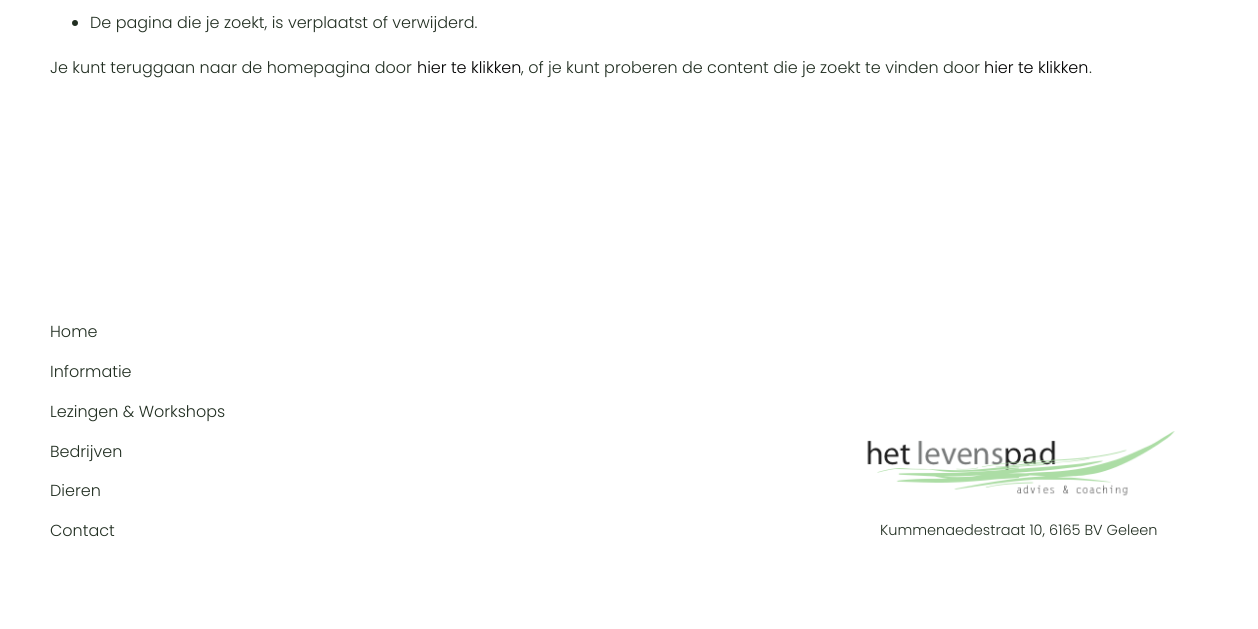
#include <cairo/cairo.h>
#include <math.h>
#include <stddef.h>

static cairo_t *cr;

static void use_color(int r, int g, int b) {
  cairo_set_source_rgb(cr, r / 255.0, g / 255.0, b / 255.0);
}

static void text(double x, double y, const char *s, const char *family, double size, int italic, int bold, int r, int g, int b) {
  cairo_select_font_face(cr, family, italic ? CAIRO_FONT_SLANT_ITALIC : CAIRO_FONT_SLANT_NORMAL,
    bold ? CAIRO_FONT_WEIGHT_BOLD : CAIRO_FONT_WEIGHT_NORMAL);
  cairo_set_font_size(cr, size);
  use_color(r, g, b);
  cairo_move_to(cr, x, y);
  cairo_show_text(cr, s);
}

static void picture(const char *path, double x, double y, double w, double h) {
  cairo_surface_t *image = cairo_image_surface_create_from_png(path);
  cairo_save(cr);
  cairo_set_source_surface(cr, image, x, y);
  cairo_rectangle(cr, x, y, w, h);
  cairo_fill(cr);
  cairo_restore(cr);
  cairo_surface_destroy(image);
}

static void draw(void) {
  use_color(255, 255, 255);
  cairo_paint(cr);
  use_color(33, 46, 33);
  cairo_arc(cr, 75, 23, 3, 0, 2 * M_PI);
  cairo_fill(cr);
  picture("img_01.png", 867, 431, 308, 65);
  text(90, 28, "De pagina die je zoekt, is verplaatst of verwijderd.", "Poppins Light", 16, 0, 0, 33, 46, 33);
  text(50, 73, "Je kunt teruggaan naar de homepagina door", "Poppins Light", 16, 0, 0, 33, 46, 33);
  text(417, 73, "hier te klikken", "Poppins Light", 16, 0, 0, 0, 0, 0);
  text(521, 73, ", of je kunt proberen de content die je zoekt te vinden door", "Poppins Light", 16, 0, 0, 33, 46, 33);
  text(984, 73, "hier te klikken", "Poppins Light", 16, 0, 0, 0, 0, 0);
  text(1089, 73, ".", "Poppins Light", 16, 0, 0, 33, 46, 33);
  text(50, 337, "Home", "Poppins Light", 16, 0, 0, 33, 46, 33);
  text(50, 377, "Informatie", "Poppins Light", 16, 0, 0, 33, 46, 33);
  text(50, 417, "Lezingen & Workshops", "Poppins Light", 16, 0, 0, 33, 46, 33);
  text(50, 457, "Bedrijven", "Poppins Light", 16, 0, 0, 33, 46, 33);
  text(50, 496, "Dieren", "Poppins Light", 16, 0, 0, 33, 46, 33);
  text(50, 536, "Contact", "Poppins Light", 16, 0, 0, 33, 46, 33);
  text(880, 535, "Kummenaedestraat 10, 6165 BV Geleen", "Poppins Light", 14.5, 0, 0, 33, 46, 33);
}

int main(void) {
  cairo_surface_t *surface = cairo_image_surface_create(CAIRO_FORMAT_RGB24, 1258, 629);
  cr = cairo_create(surface);
  cairo_font_options_t *options = cairo_font_options_create();
  cairo_font_options_set_hint_metrics(options, CAIRO_HINT_METRICS_OFF);
  cairo_font_options_set_hint_style(options, CAIRO_HINT_STYLE_NONE);
  cairo_set_font_options(cr, options);
  cairo_set_miter_limit(cr, 4);
  draw();
  cairo_surface_write_to_png(surface, "out.png");
  cairo_font_options_destroy(options);
  cairo_destroy(cr);
  cairo_surface_destroy(surface);
  return 0;
}
